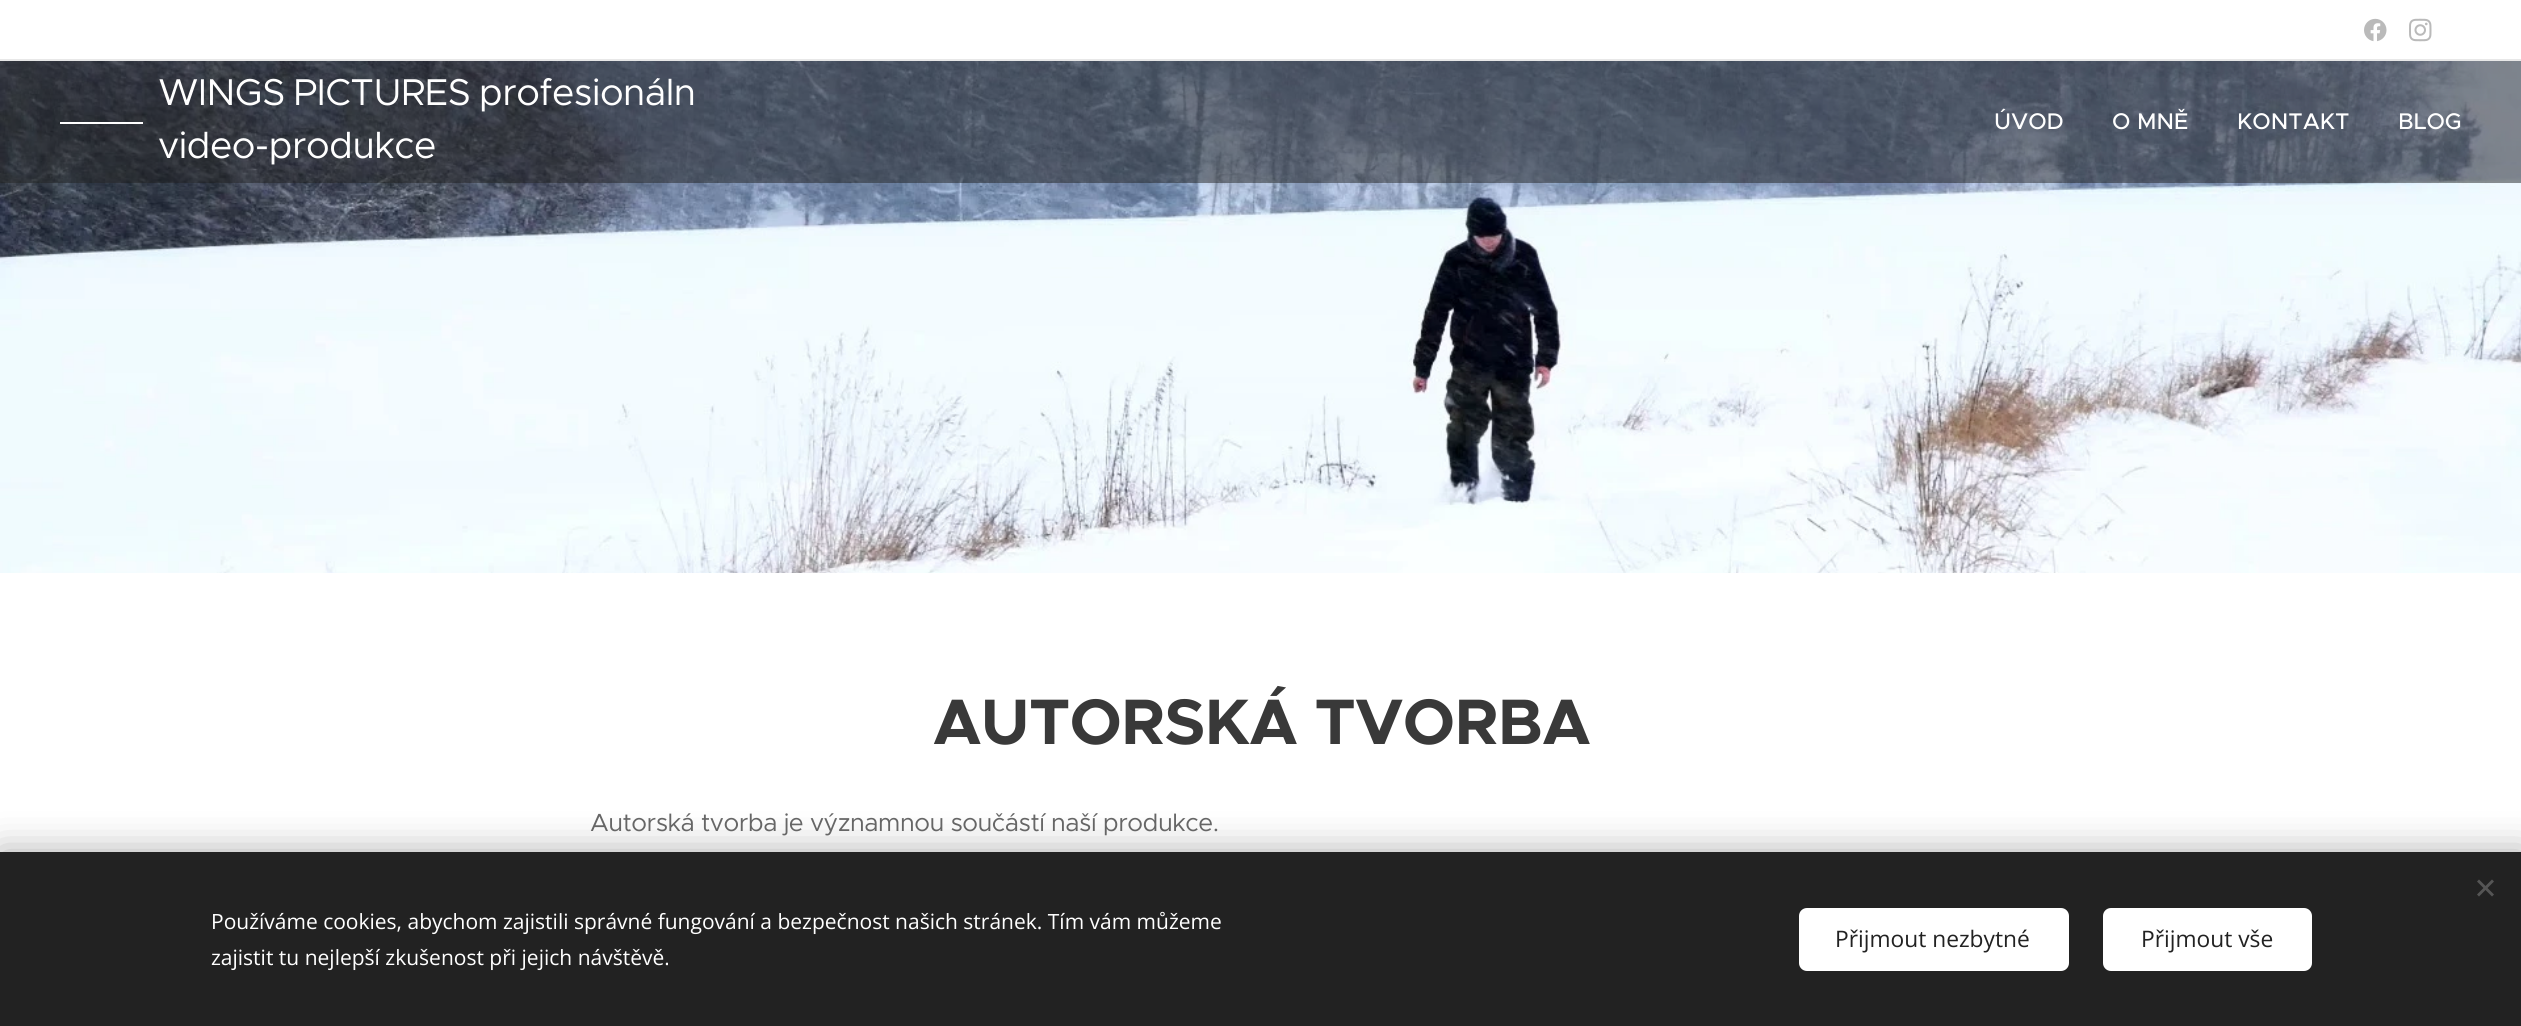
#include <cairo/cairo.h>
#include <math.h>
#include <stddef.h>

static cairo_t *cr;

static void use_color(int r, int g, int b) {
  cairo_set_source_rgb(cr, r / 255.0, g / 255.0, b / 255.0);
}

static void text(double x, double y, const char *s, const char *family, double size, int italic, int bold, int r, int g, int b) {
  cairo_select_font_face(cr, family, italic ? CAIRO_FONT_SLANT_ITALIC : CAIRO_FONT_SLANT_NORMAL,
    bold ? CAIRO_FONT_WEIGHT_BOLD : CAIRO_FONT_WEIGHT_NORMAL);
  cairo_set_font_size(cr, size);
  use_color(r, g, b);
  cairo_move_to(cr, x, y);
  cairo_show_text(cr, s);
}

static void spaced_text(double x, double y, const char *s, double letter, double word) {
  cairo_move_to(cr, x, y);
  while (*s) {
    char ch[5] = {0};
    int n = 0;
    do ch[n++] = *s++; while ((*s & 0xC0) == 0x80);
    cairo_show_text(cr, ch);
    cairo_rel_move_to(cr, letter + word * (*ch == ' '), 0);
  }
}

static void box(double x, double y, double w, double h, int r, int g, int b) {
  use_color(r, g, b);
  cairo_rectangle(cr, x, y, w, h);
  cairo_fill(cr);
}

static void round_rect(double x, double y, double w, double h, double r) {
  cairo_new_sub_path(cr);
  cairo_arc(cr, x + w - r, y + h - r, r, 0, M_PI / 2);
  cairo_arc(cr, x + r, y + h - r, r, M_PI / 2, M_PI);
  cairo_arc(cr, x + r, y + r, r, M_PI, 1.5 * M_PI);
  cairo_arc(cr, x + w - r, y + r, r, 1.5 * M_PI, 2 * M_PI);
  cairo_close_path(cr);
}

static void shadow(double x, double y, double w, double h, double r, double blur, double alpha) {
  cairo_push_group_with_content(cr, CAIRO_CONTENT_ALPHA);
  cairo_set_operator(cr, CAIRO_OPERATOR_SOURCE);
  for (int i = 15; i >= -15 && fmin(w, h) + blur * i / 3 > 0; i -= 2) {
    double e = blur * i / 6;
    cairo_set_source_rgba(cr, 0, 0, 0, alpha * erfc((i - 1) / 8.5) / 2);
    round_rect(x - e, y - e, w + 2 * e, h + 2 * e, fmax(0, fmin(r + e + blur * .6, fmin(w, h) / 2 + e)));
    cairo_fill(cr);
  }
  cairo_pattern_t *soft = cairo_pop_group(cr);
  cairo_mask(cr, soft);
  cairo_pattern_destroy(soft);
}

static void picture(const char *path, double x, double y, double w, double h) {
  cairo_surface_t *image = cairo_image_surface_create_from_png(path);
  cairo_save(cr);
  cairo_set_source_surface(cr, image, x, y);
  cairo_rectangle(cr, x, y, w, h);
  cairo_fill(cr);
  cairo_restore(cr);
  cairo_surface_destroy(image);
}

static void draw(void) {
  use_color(255, 255, 255);
  cairo_paint(cr);
  picture("img_01.png", 2364, 18, 23, 24);
  picture("img_02.png", 2409, 18, 23, 24);
  box(0, 59, 2521, 2, 232, 232, 232);
  picture("img_03.png", 0, 61, 2521, 512);
  cairo_set_source_rgba(cr, 0.133, 0.133, 0.133, 0.5);
  cairo_rectangle(cr, 0, 61, 2521, 122);
  cairo_fill(cr);
  box(60, 122, 83, 2, 255, 255, 255);
  use_color(0, 0, 0);
  shadow(0, 852, 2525, 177, 0, 19, 0.33);
  box(0, 852, 2521, 174, 34, 34, 34);
  use_color(85, 85, 85);
  cairo_new_path(cr);
  cairo_move_to(cr, 2477, 894.5);
  cairo_line_to(cr, 2492, 879.5);
  cairo_line_to(cr, 2494, 881.5);
  cairo_line_to(cr, 2479, 896.5);
  cairo_close_path(cr);
  cairo_fill(cr);
  cairo_new_path(cr);
  cairo_move_to(cr, 2479, 879.5);
  cairo_line_to(cr, 2494, 894.5);
  cairo_line_to(cr, 2492, 896.5);
  cairo_line_to(cr, 2477, 881.5);
  cairo_close_path(cr);
  cairo_fill(cr);
  use_color(255, 255, 255);
  round_rect(1799, 908, 270, 63, 8);
  cairo_fill(cr);
  round_rect(2103, 908, 209, 63, 8);
  cairo_fill(cr);
  cairo_select_font_face(cr, "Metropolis", CAIRO_FONT_SLANT_NORMAL, CAIRO_FONT_WEIGHT_NORMAL);
  cairo_set_font_size(cr, 37.5);
  spaced_text(158, 105, "WINGS PICTURES profesionáln", -0.48, -2);
  spaced_text(158, 158, "video-produkce", -0.48, 0);
  text(1994, 129, "ÚVOD", "Metropolis Medium", 22.75, 0, 0, 255, 255, 255);
  text(2112, 129, "O MNĚ", "Metropolis Medium", 22.75, 0, 0, 255, 255, 255);
  text(2237, 129, "KONTAKT", "Metropolis Medium", 22.75, 0, 0, 255, 255, 255);
  text(2398, 129, "BLOG", "Metropolis Medium", 22.75, 0, 0, 255, 255, 255);
  cairo_select_font_face(cr, "Metropolis", CAIRO_FONT_SLANT_NORMAL, CAIRO_FONT_WEIGHT_BOLD);
  cairo_set_font_size(cr, 64.5);
  use_color(57, 57, 57);
  spaced_text(933, 744, "AUTORSKÁ TVORBA", -0.6, 0);
  cairo_select_font_face(cr, "Metropolis", CAIRO_FONT_SLANT_NORMAL, CAIRO_FONT_WEIGHT_NORMAL);
  cairo_set_font_size(cr, 24.9);
  use_color(102, 102, 102);
  spaced_text(590, 831, "Autorská tvorba je významnou součástí naší produkce.", -0.48, 0);
  text(211, 929, "Používáme cookies, abychom zajistili správné fungování a bezpečnost našich stránek. Tím vám můžeme", "Open Sans", 21, 0, 0, 255, 255, 255);
  text(211, 965, "zajistit tu nejlepší zkušenost při jejich návštěvě.", "Open Sans", 21, 0, 0, 255, 255, 255);
  text(1835, 947, "Přijmout nezbytné", "Open Sans", 22.75, 0, 0, 34, 34, 34);
  text(2141, 947, "Přijmout vše", "Open Sans", 22.75, 0, 0, 34, 34, 34);
}

int main(void) {
  cairo_surface_t *surface = cairo_image_surface_create(CAIRO_FORMAT_RGB24, 2521, 1026);
  cr = cairo_create(surface);
  cairo_font_options_t *options = cairo_font_options_create();
  cairo_font_options_set_hint_metrics(options, CAIRO_HINT_METRICS_OFF);
  cairo_font_options_set_hint_style(options, CAIRO_HINT_STYLE_NONE);
  cairo_set_font_options(cr, options);
  cairo_set_miter_limit(cr, 4);
  draw();
  cairo_surface_write_to_png(surface, "out.png");
  cairo_font_options_destroy(options);
  cairo_destroy(cr);
  cairo_surface_destroy(surface);
  return 0;
}
